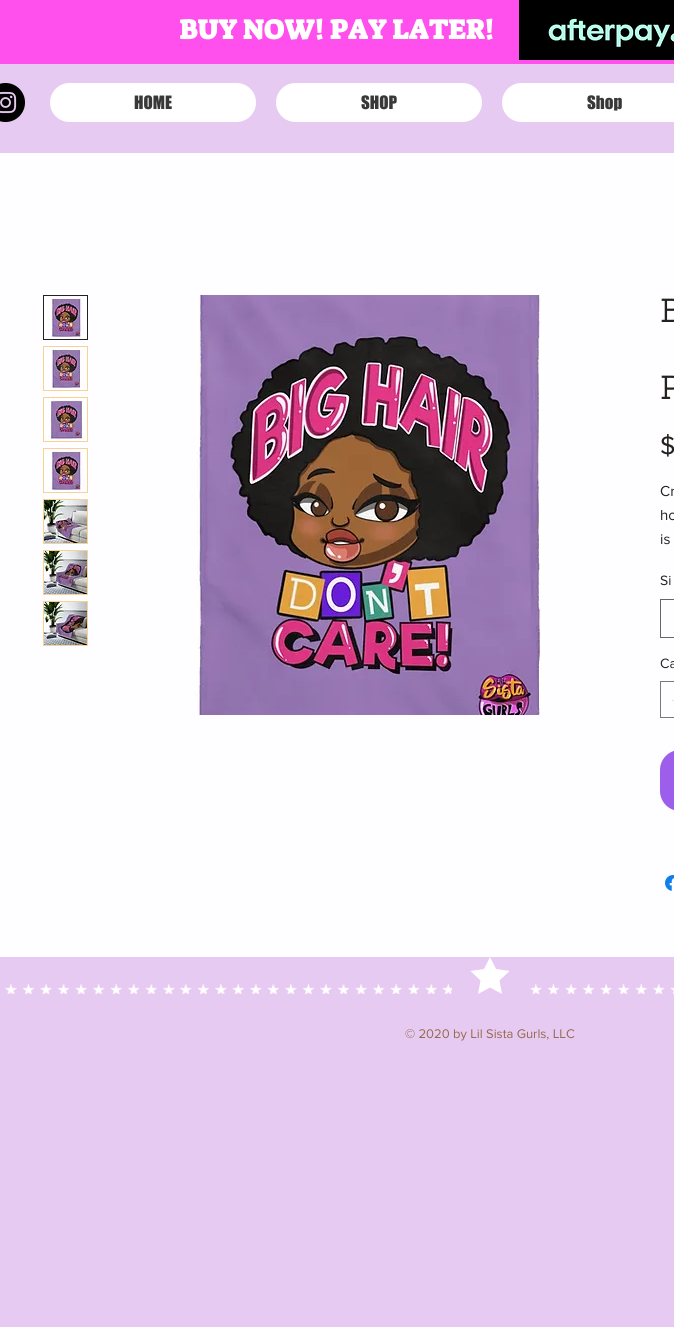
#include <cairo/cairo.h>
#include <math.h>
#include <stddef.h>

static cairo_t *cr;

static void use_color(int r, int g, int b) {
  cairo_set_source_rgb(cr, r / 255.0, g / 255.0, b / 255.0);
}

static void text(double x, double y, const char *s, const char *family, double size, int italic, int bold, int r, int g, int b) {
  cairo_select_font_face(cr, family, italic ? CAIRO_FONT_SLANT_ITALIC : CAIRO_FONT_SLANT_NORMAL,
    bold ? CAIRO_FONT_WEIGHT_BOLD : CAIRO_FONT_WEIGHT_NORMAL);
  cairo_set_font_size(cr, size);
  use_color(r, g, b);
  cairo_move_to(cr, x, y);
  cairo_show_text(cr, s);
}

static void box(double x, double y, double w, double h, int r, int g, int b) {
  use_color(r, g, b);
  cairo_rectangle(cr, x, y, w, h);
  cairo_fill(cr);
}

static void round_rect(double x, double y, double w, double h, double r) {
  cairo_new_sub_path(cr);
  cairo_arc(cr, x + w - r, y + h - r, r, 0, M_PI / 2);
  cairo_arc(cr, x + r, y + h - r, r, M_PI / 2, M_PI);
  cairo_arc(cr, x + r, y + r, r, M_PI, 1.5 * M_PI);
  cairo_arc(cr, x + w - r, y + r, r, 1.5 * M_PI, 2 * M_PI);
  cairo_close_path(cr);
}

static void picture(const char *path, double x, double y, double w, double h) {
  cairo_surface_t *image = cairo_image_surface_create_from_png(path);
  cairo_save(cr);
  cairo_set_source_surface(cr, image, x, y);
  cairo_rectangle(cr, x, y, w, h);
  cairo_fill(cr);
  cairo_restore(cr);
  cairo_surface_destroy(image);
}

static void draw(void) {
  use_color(231, 202, 242);
  cairo_paint(cr);
  box(0, 0, 674, 64, 255, 79, 237);
  picture("img_01.png", 519, 0, 155, 60);
  picture("img_02.png", 0, 83, 25, 39);
  use_color(255, 255, 255);
  round_rect(50, 83, 206, 39, 19.5);
  cairo_fill(cr);
  round_rect(276, 83, 206, 39, 19.5);
  cairo_fill(cr);
  round_rect(502, 83, 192, 39, 19.5);
  cairo_fill(cr);
  box(0, 153, 674, 804, 254, 253, 255);
  cairo_rectangle(cr, 43.5, 295.5, 44, 44);
  use_color(36, 33, 31);
  cairo_set_line_width(cr, 1);
  cairo_stroke(cr);
  picture("img_03.png", 44, 296, 43, 43);
  box(43, 346, 45, 45, 249, 209, 149);
  picture("img_04.png", 44, 347, 43, 43);
  box(43, 397, 45, 45, 249, 209, 149);
  picture("img_05.png", 44, 398, 43, 43);
  box(43, 448, 45, 45, 249, 209, 149);
  picture("img_03.png", 44, 449, 43, 43);
  box(43, 499, 45, 45, 249, 209, 149);
  picture("img_06.png", 44, 500, 43, 43);
  box(43, 550, 45, 45, 249, 209, 149);
  picture("img_07.png", 44, 551, 43, 43);
  box(43, 601, 45, 45, 249, 209, 149);
  picture("img_08.png", 44, 602, 43, 43);
  picture("img_09.png", 196, 295, 348, 420);
  cairo_rectangle(cr, 660.5, 599.5, 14, 38);
  use_color(102, 102, 102);
  cairo_stroke(cr);
  cairo_rectangle(cr, 660.5, 681.5, 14, 36);
  use_color(124, 122, 121);
  cairo_stroke(cr);
  box(672, 700, 2, 1, 227, 227, 227);
  use_color(157, 95, 235);
  round_rect(660, 750, 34, 61, 20);
  cairo_fill(cr);
  picture("img_10.png", 665, 875, 9, 16);
  picture("img_11.png", 4, 984, 448, 10);
  use_color(255, 255, 255);
  cairo_new_path(cr);
  cairo_move_to(cr, 490, 957);
  cairo_line_to(cr, 496, 969);
  cairo_line_to(cr, 509.5, 971);
  cairo_line_to(cr, 499.5, 980.5);
  cairo_line_to(cr, 502, 994);
  cairo_line_to(cr, 490, 987.5);
  cairo_line_to(cr, 478, 994);
  cairo_line_to(cr, 480.5, 980.5);
  cairo_line_to(cr, 470.5, 971);
  cairo_line_to(cr, 484, 969);
  cairo_close_path(cr);
  cairo_fill(cr);
  picture("img_12.png", 529, 984, 145, 10);
  text(179, 39, "BUY NOW! PAY LATER!", "Suez One", 28, 0, 1, 255, 255, 255);
  text(134, 109, "HOME", "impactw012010", 17, 0, 0, 56, 56, 56);
  text(361, 109, "SHOP", "impactw012010", 17, 0, 0, 56, 56, 56);
  text(587, 109, "Shop", "impactw012010", 17, 0, 0, 56, 56, 56);
  text(660, 322, "B", "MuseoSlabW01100", 32, 0, 1, 36, 33, 31);
  text(660, 399, "P", "MuseoSlabW01100", 32, 0, 1, 36, 33, 31);
  text(660, 454, "$", "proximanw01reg", 26, 0, 0, 36, 33, 31);
  text(660, 496, "Cr", "proximanw01reg", 15, 0, 0, 36, 33, 31);
  text(660, 520, "ho", "proximanw01reg", 15, 0, 0, 36, 33, 31);
  text(660, 544, "is", "proximanw01reg", 15, 0, 0, 36, 33, 31);
  text(660, 585, "Si", "proximanw01reg", 14, 0, 0, 36, 33, 31);
  text(660, 668, "Ca", "proximanw01reg", 14, 0, 0, 36, 33, 31);
  text(405, 1038, "© 2020 by Lil Sista Gurls, LLC", "proximanw01reg", 13, 0, 0, 148, 106, 78);
}

int main(void) {
  cairo_surface_t *surface = cairo_image_surface_create(CAIRO_FORMAT_RGB24, 674, 1327);
  cr = cairo_create(surface);
  cairo_font_options_t *options = cairo_font_options_create();
  cairo_font_options_set_hint_metrics(options, CAIRO_HINT_METRICS_OFF);
  cairo_font_options_set_hint_style(options, CAIRO_HINT_STYLE_NONE);
  cairo_set_font_options(cr, options);
  cairo_set_miter_limit(cr, 4);
  draw();
  cairo_surface_write_to_png(surface, "out.png");
  cairo_font_options_destroy(options);
  cairo_destroy(cr);
  cairo_surface_destroy(surface);
  return 0;
}
